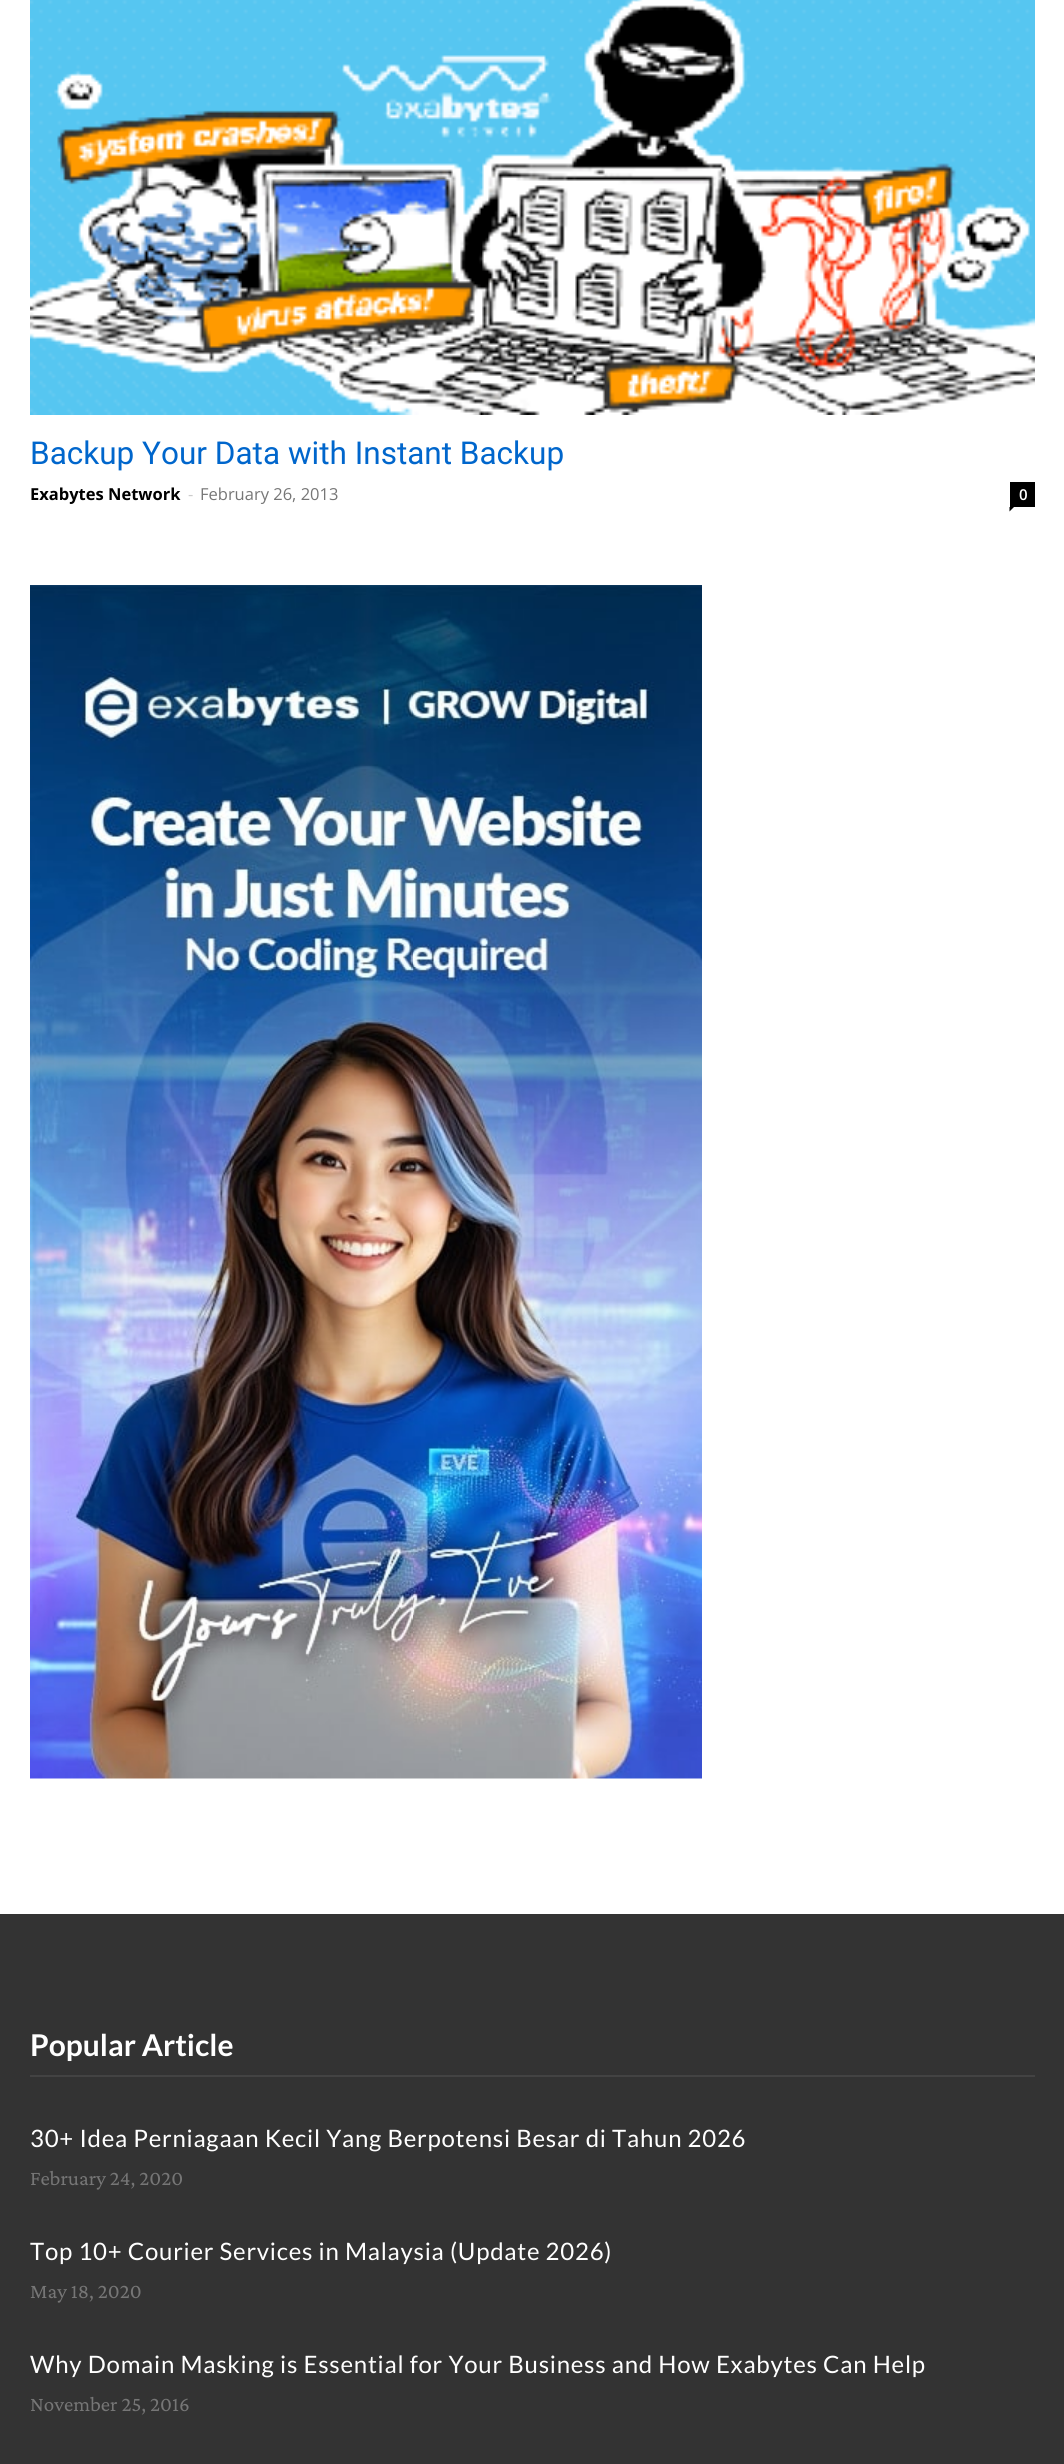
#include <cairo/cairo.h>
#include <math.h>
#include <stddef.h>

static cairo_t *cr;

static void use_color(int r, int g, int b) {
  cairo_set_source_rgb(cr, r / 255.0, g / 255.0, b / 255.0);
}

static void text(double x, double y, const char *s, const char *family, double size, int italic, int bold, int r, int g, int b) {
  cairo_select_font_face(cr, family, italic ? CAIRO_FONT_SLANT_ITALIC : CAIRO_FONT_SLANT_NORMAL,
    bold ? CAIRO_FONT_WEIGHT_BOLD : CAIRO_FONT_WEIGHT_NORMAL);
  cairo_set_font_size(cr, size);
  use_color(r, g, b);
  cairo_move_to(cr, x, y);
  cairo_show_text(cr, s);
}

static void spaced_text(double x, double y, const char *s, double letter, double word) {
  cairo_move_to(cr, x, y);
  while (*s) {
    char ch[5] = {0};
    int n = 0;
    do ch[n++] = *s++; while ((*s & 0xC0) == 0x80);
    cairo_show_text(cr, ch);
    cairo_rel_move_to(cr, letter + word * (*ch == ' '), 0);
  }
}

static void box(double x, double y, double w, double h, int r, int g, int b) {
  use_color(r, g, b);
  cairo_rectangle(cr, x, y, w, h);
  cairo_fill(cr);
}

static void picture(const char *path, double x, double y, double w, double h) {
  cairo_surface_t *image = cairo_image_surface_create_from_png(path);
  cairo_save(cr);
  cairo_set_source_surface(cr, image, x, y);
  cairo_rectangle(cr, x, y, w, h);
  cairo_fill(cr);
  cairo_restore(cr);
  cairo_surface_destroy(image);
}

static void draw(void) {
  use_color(255, 255, 255);
  cairo_paint(cr);
  picture("img_01.png", 30, 0, 1005, 415);
  box(1010, 482, 25, 25, 0, 0, 0);
  cairo_new_path(cr);
  cairo_move_to(cr, 1009.5, 507);
  cairo_line_to(cr, 1014, 507);
  cairo_line_to(cr, 1009.5, 511.5);
  cairo_close_path(cr);
  cairo_fill(cr);
  picture("img_02.png", 30, 585, 672, 1194);
  box(0, 1914, 1064, 550, 51, 51, 51);
  box(30, 2075, 1005, 2, 67, 67, 67);
  text(30, 464, "Backup Your Data with Instant Backup", "Roboto", 31.5, 0, 0, 0, 102, 204);
  text(30, 500, "Exabytes Network", "Open Sans", 16.5, 0, 1, 0, 0, 0);
  text(188, 500, "-", "Open Sans", 16.5, 0, 0, 204, 204, 204);
  text(200, 500, "February 26, 2013", "Open Sans", 16.5, 0, 0, 118, 118, 118);
  text(1019, 500, "0", "Open Sans SemiBold", 15, 0, 0, 255, 255, 255);
  text(30, 2056, "Popular Article", "Lato", 30, 0, 1, 255, 255, 255);
  cairo_select_font_face(cr, "Lato", CAIRO_FONT_SLANT_NORMAL, CAIRO_FONT_WEIGHT_NORMAL);
  cairo_set_font_size(cr, 24);
  spaced_text(30, 2147, "30+ Idea Perniagaan Kecil Yang Berpotensi Besar di Tahun 2026", 0.75, 0);
  text(30, 2185, "February 24, 2020", "Crimson Pro", 21, 0, 0, 118, 118, 118);
  cairo_select_font_face(cr, "Lato", CAIRO_FONT_SLANT_NORMAL, CAIRO_FONT_WEIGHT_NORMAL);
  cairo_set_font_size(cr, 24);
  use_color(255, 255, 255);
  spaced_text(30, 2260, "Top 10+ Courier Services in Malaysia (Update 2026)", 0.75, 0);
  text(30, 2298, "May 18, 2020", "Crimson Pro", 21, 0, 0, 118, 118, 118);
  cairo_select_font_face(cr, "Lato", CAIRO_FONT_SLANT_NORMAL, CAIRO_FONT_WEIGHT_NORMAL);
  cairo_set_font_size(cr, 24);
  use_color(255, 255, 255);
  spaced_text(30, 2373, "Why Domain Masking is Essential for Your Business and How Exabytes Can Help", 0.75, 0);
  text(30, 2411, "November 25, 2016", "Crimson Pro", 21, 0, 0, 118, 118, 118);
}

int main(void) {
  cairo_surface_t *surface = cairo_image_surface_create(CAIRO_FORMAT_RGB24, 1064, 2464);
  cr = cairo_create(surface);
  cairo_font_options_t *options = cairo_font_options_create();
  cairo_font_options_set_hint_metrics(options, CAIRO_HINT_METRICS_OFF);
  cairo_font_options_set_hint_style(options, CAIRO_HINT_STYLE_NONE);
  cairo_set_font_options(cr, options);
  cairo_set_miter_limit(cr, 4);
  draw();
  cairo_surface_write_to_png(surface, "out.png");
  cairo_font_options_destroy(options);
  cairo_destroy(cr);
  cairo_surface_destroy(surface);
  return 0;
}
